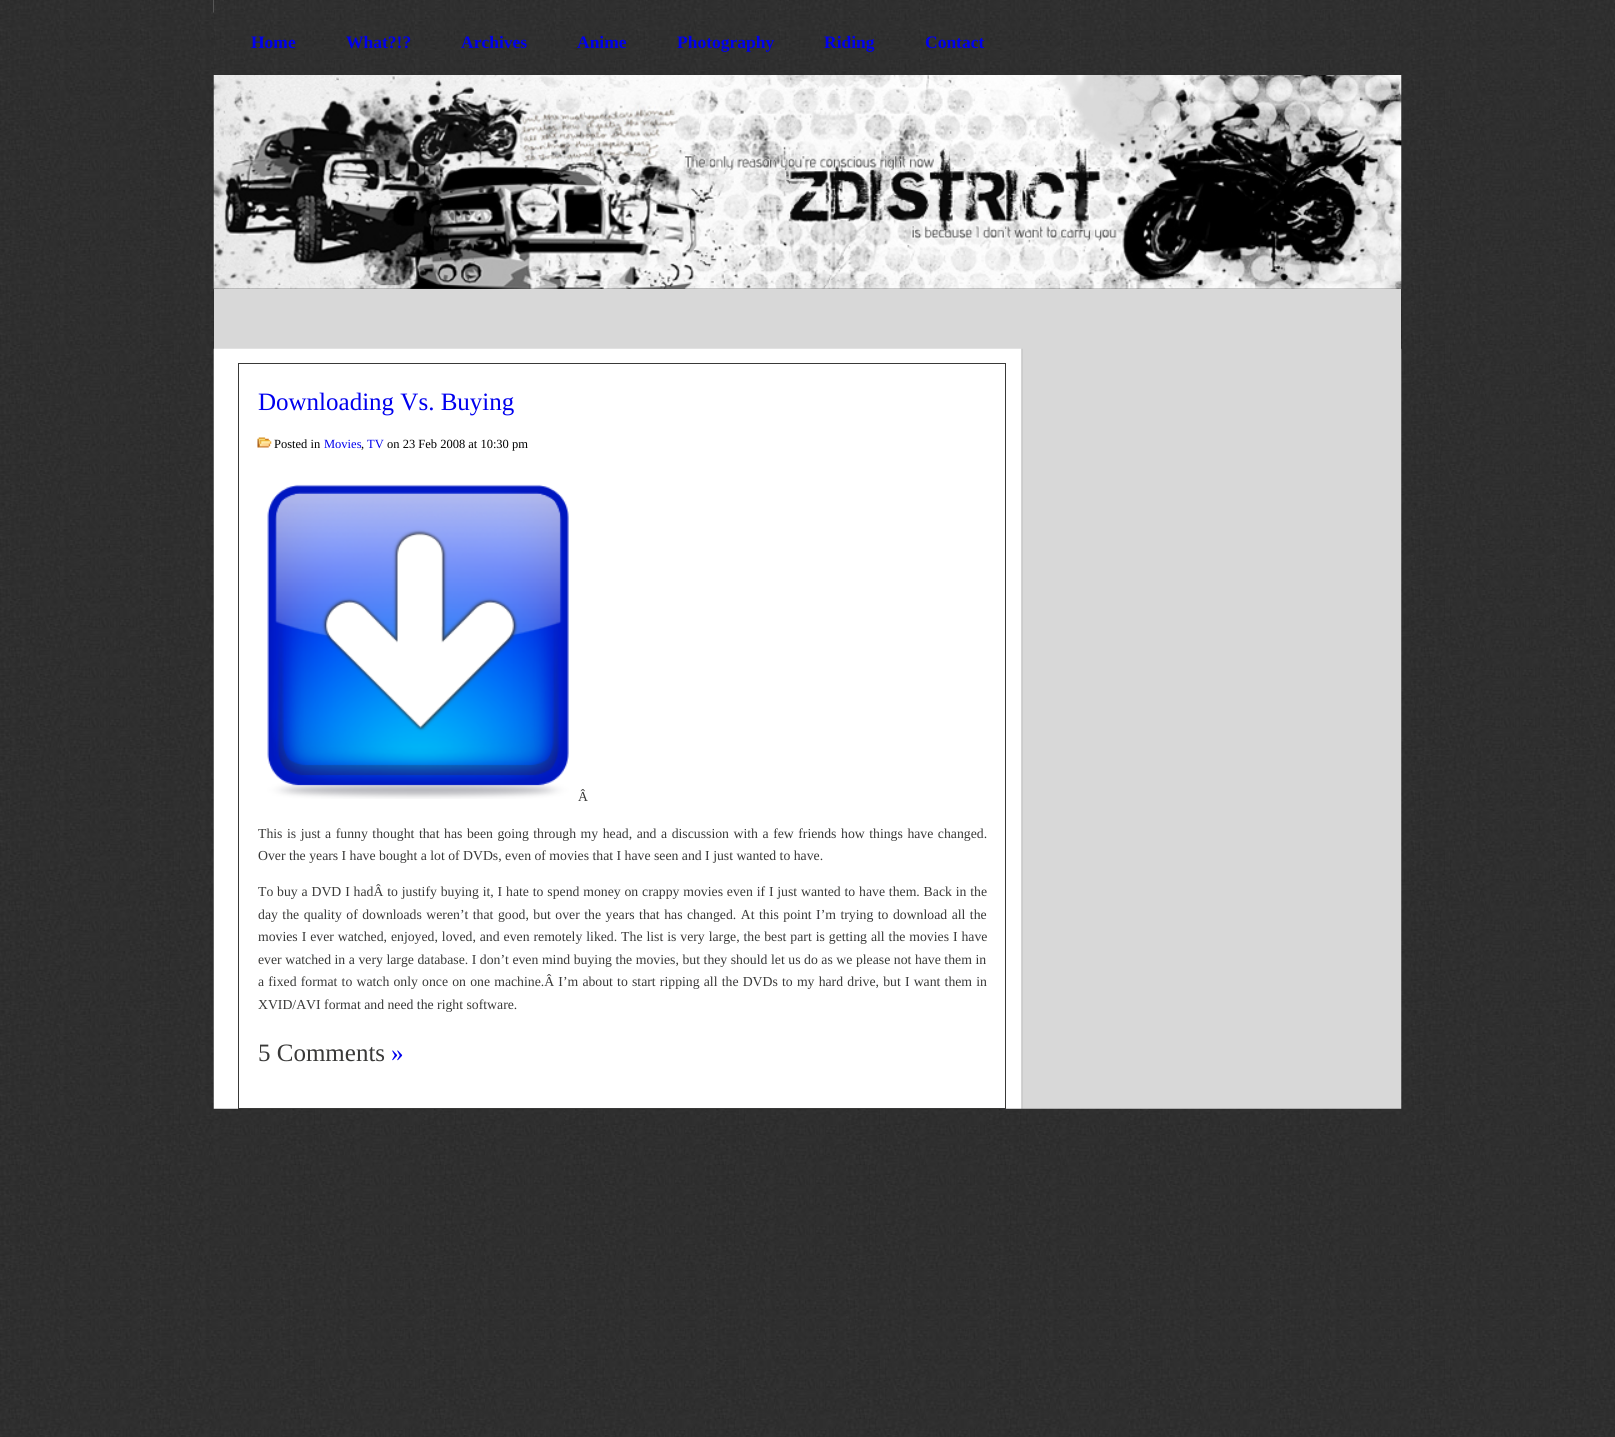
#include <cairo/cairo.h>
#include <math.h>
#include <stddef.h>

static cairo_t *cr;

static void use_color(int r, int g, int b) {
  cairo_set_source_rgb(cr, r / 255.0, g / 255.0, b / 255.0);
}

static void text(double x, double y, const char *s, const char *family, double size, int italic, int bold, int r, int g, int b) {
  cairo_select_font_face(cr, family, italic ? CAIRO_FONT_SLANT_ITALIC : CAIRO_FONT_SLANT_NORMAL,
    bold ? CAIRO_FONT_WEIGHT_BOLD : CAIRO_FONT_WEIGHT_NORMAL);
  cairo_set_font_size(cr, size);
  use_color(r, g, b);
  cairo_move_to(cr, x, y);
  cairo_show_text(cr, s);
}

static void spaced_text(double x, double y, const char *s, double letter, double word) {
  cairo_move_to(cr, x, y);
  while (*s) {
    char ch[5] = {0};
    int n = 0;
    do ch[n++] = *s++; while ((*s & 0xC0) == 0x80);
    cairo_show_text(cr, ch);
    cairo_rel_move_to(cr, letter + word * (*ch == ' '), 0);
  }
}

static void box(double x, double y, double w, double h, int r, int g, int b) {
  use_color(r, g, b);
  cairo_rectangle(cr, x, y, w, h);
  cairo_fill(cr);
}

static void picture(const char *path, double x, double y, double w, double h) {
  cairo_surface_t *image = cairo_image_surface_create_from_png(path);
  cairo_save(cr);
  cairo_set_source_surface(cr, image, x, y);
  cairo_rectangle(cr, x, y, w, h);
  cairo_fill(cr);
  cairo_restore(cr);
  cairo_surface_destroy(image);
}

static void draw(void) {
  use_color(255, 255, 255);
  cairo_paint(cr);
  picture("img_01.png", 0, 0, 1615, 1437);
  picture("img_02.png", 213, 0, 1, 13);
  picture("img_03.png", 213, 0, 1188, 75);
  picture("img_04.png", 213, 75, 1189, 214);
  box(214, 289, 1187, 60, 216, 216, 216);
  picture("img_05.png", 213, 348, 1189, 2);
  picture("img_06.png", 213, 350, 1189, 759);
  cairo_rectangle(cr, 238.5, 363.5, 767, 745);
  use_color(57, 57, 56);
  cairo_set_line_width(cr, 1);
  cairo_stroke(cr);
  picture("img_07.png", 257, 437, 15, 11);
  picture("img_08.png", 267, 484, 302, 315);
  text(251, 48, "Home", "Liberation Serif", 17.5, 0, 1, 0, 0, 238);
  text(346, 48, "What?!?", "Liberation Serif", 17.5, 0, 1, 0, 0, 238);
  text(461, 48, "Archives", "Liberation Serif", 17.5, 0, 1, 0, 0, 238);
  text(577, 48, "Anime", "Liberation Serif", 17.5, 0, 1, 0, 0, 238);
  text(677, 48, "Photography", "Liberation Serif", 17.5, 0, 1, 0, 0, 238);
  text(824, 48, "Riding", "Liberation Serif", 17.5, 0, 1, 0, 0, 238);
  text(925, 48, "Contact", "Liberation Serif", 17.5, 0, 1, 0, 0, 238);
  text(258, 410, "Downloading Vs. Buying", "Liberation Serif", 25, 0, 0, 0, 0, 238);
  text(274, 448, "Posted in", "Liberation Serif", 12.5, 0, 0, 0, 0, 0);
  text(324, 448, "Movies", "Liberation Serif", 12.5, 0, 0, 0, 0, 238);
  text(361, 448, ",", "Liberation Serif", 12.5, 0, 0, 0, 0, 0);
  text(367, 448, "TV", "Liberation Serif", 12.5, 0, 0, 0, 0, 238);
  text(387, 448, "on 23 Feb 2008 at 10:30 pm", "Liberation Serif", 12.5, 0, 0, 0, 0, 0);
  text(578, 801, "Â", "Liberation Serif", 13.75, 0, 0, 57, 57, 56);
  spaced_text(258, 838, "This is just a funny thought that has been going through my head, and a discussion with a few friends how things have changed.", 0, 1.1);
  text(258, 860, "Over the years I have bought a lot of DVDs, even of movies that I have seen and I just wanted to have.", "Liberation Serif", 13.75, 0, 0, 57, 57, 56);
  spaced_text(258, 896, "To buy a DVD I hadÂ to justify buying it, I hate to spend money on crappy movies even if I just wanted to have them. Back in the", 0, 0.4);
  spaced_text(258, 919, "day the quality of downloads weren’t that good, but over the years that has changed. At this point I’m trying to download all the", 0, 1.05);
  spaced_text(258, 941, "movies I ever watched, enjoyed, loved, and even remotely liked. The list is very large, the best part is getting all the movies I have", 0, 0.5);
  spaced_text(258, 964, "ever watched in a very large database. I don’t even mind buying the movies, but they should let us do as we please not have them in", 0, 0.1);
  spaced_text(258, 986, "a fixed format to watch only once on one machine.Â I’m about to start ripping all the DVDs to my hard drive, but I want them in", 0, 0.75);
  text(258, 1009, "XVID/AVI format and need the right software.", "Liberation Serif", 13.75, 0, 0, 57, 57, 56);
  text(258, 1061, "5 Comments", "Liberation Serif", 25, 0, 0, 57, 57, 56);
  text(391, 1061, "»", "Liberation Serif", 25, 0, 0, 0, 0, 238);
}

int main(void) {
  cairo_surface_t *surface = cairo_image_surface_create(CAIRO_FORMAT_RGB24, 1615, 1437);
  cr = cairo_create(surface);
  cairo_font_options_t *options = cairo_font_options_create();
  cairo_font_options_set_hint_metrics(options, CAIRO_HINT_METRICS_OFF);
  cairo_font_options_set_hint_style(options, CAIRO_HINT_STYLE_NONE);
  cairo_set_font_options(cr, options);
  cairo_set_miter_limit(cr, 4);
  draw();
  cairo_surface_write_to_png(surface, "out.png");
  cairo_font_options_destroy(options);
  cairo_destroy(cr);
  cairo_surface_destroy(surface);
  return 0;
}
